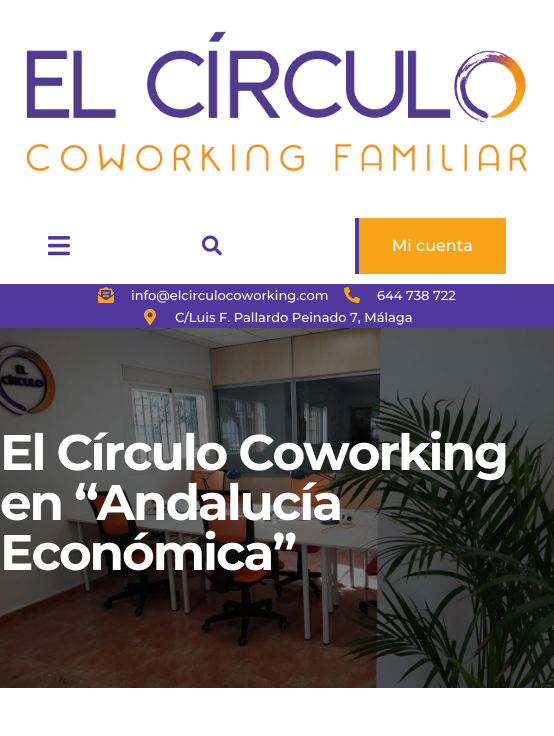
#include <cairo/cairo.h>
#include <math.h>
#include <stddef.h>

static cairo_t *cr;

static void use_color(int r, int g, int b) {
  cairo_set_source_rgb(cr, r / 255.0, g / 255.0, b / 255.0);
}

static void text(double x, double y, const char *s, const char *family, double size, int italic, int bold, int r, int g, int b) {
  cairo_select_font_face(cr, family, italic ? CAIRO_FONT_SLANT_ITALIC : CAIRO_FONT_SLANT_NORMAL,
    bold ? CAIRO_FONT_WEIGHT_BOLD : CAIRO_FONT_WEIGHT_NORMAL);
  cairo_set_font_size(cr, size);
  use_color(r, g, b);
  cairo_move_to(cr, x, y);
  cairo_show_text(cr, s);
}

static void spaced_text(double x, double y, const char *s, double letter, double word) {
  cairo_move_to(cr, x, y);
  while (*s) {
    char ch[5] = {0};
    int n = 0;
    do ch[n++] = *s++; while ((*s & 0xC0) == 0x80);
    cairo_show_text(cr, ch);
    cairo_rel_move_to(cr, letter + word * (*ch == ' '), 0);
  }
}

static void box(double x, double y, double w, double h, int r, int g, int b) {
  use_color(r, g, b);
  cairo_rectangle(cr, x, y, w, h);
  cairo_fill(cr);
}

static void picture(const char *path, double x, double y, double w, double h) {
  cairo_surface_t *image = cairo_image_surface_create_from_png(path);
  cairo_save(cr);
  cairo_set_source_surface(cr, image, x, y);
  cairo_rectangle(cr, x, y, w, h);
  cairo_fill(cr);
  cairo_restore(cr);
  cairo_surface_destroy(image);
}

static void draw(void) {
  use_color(255, 255, 255);
  cairo_paint(cr);
  picture("img_01.png", 26, 31, 502, 141);
  picture("img_02.png", 48, 236, 22, 20);
  picture("img_03.png", 202, 235, 20, 21);
  box(359, 218, 147, 56, 247, 164, 24);
  box(355, 218, 4, 56, 80, 56, 158);
  box(0, 284, 554, 44, 80, 56, 158);
  picture("img_04.png", 98, 287, 16, 16);
  picture("img_05.png", 344, 287, 16, 16);
  picture("img_06.png", 144, 309, 12, 16);
  picture("img_07.png", 0, 328, 554, 360);
  text(392, 251, "Mi cuenta", "Montserrat Medium", 16, 0, 0, 255, 255, 255);
  text(131, 300, "info@elcirculocoworking.com", "Montserrat Medium", 13, 0, 0, 255, 255, 255);
  text(377, 300, "644 738 722", "Montserrat Medium", 13, 0, 0, 255, 255, 255);
  text(175, 322, "C/Luis F. Pallardo Peinado 7, Málaga", "Montserrat Medium", 13, 0, 0, 255, 255, 255);
  cairo_select_font_face(cr, "Montserrat", CAIRO_FONT_SLANT_NORMAL, CAIRO_FONT_WEIGHT_BOLD);
  cairo_set_font_size(cr, 50);
  spaced_text(0, 470, "El Círculo Coworking", -2.1, 0);
  spaced_text(0, 520, "en “Andalucía", -2.1, 0);
  spaced_text(0, 570, "Económica”", -2.1, 0);
}

int main(void) {
  cairo_surface_t *surface = cairo_image_surface_create(CAIRO_FORMAT_RGB24, 554, 736);
  cr = cairo_create(surface);
  cairo_font_options_t *options = cairo_font_options_create();
  cairo_font_options_set_hint_metrics(options, CAIRO_HINT_METRICS_OFF);
  cairo_font_options_set_hint_style(options, CAIRO_HINT_STYLE_NONE);
  cairo_set_font_options(cr, options);
  cairo_set_miter_limit(cr, 4);
  draw();
  cairo_surface_write_to_png(surface, "out.png");
  cairo_font_options_destroy(options);
  cairo_destroy(cr);
  cairo_surface_destroy(surface);
  return 0;
}
